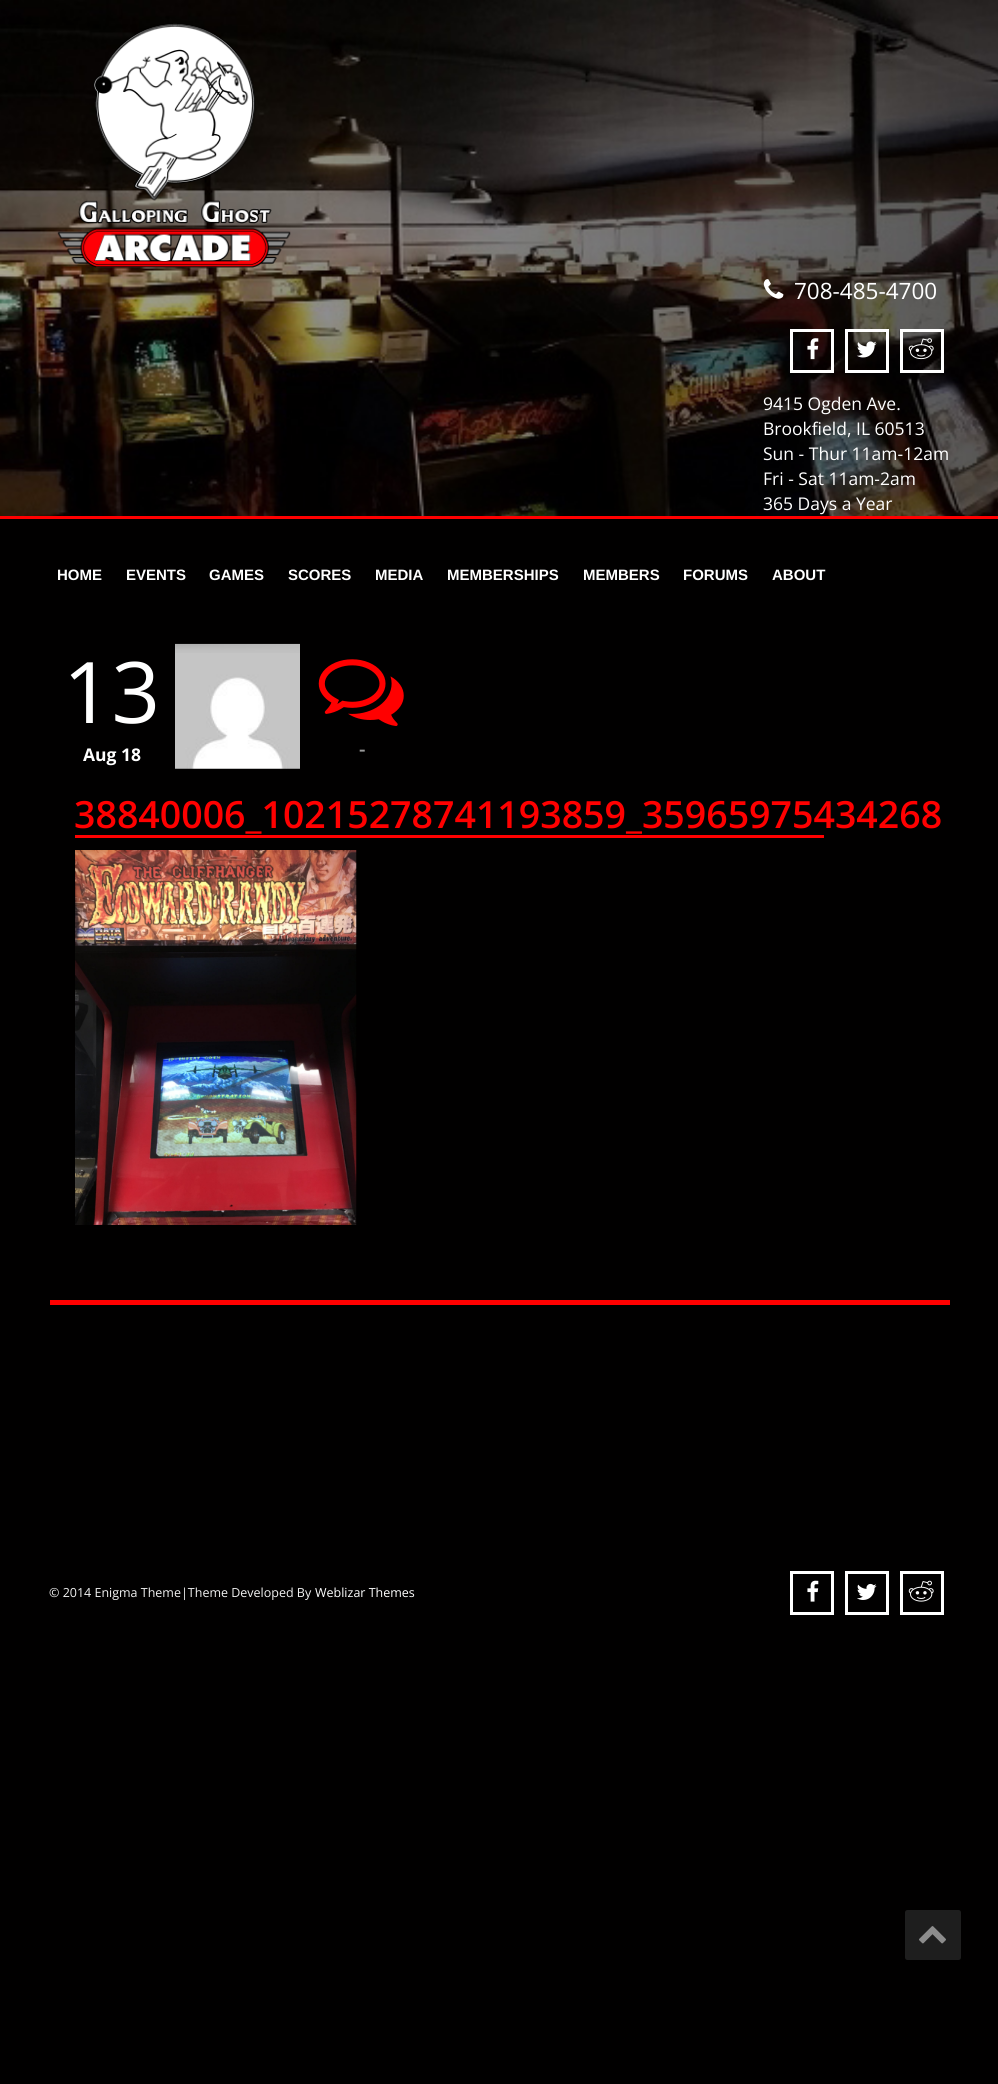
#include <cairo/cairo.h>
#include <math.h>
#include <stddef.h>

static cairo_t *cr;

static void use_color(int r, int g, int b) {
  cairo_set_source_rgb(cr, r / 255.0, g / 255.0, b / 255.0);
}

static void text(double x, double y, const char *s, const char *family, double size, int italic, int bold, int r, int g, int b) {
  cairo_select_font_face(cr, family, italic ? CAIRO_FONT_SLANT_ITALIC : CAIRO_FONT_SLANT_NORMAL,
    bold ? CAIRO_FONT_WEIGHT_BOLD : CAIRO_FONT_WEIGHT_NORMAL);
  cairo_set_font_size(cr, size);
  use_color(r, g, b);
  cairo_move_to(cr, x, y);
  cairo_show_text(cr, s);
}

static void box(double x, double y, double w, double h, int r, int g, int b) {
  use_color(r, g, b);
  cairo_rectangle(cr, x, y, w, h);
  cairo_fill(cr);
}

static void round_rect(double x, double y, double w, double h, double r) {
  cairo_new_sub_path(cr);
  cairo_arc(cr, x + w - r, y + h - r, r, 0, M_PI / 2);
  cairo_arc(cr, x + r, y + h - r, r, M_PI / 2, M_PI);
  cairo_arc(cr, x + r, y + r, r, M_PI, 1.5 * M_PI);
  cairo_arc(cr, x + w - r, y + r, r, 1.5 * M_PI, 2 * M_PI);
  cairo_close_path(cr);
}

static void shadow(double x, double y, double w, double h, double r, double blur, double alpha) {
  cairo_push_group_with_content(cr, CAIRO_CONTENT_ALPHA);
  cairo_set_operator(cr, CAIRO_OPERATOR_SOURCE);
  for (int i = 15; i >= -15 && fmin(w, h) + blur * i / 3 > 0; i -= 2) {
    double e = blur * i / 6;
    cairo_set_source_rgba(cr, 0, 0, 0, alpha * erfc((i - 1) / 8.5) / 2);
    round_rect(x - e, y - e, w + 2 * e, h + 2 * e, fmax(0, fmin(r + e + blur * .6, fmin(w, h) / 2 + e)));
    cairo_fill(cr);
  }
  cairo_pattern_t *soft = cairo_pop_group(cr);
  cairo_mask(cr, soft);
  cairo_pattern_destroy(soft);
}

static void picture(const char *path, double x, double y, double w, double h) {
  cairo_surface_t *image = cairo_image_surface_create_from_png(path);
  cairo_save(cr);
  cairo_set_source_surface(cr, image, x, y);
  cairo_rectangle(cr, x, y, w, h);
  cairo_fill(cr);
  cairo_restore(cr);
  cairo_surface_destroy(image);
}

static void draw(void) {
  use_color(1, 0, 0);
  cairo_paint(cr);
  picture("img_01.png", 0, 0, 998, 516);
  picture("img_02.png", 57, 23, 234, 245);
  picture("img_03.png", 763, 279, 21, 20);
  cairo_save(cr);
  cairo_set_fill_rule(cr, CAIRO_FILL_RULE_EVEN_ODD);
  cairo_new_path(cr);
  cairo_move_to(cr, 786, 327);
  cairo_line_to(cr, 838, 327);
  cairo_line_to(cr, 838, 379);
  cairo_line_to(cr, 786, 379);
  cairo_close_path(cr);
  cairo_move_to(cr, 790, 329);
  cairo_line_to(cr, 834, 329);
  cairo_line_to(cr, 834, 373);
  cairo_line_to(cr, 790, 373);
  cairo_close_path(cr);
  cairo_clip(cr);
  use_color(0, 0, 0);
  shadow(790, 331, 44, 44, 0, 1, 0.6);
  cairo_restore(cr);
  cairo_rectangle(cr, 791.5, 330.5, 41, 41);
  use_color(255, 255, 255);
  cairo_set_line_width(cr, 3);
  cairo_stroke(cr);
  picture("img_04.png", 807, 338, 12, 22);
  cairo_save(cr);
  cairo_set_fill_rule(cr, CAIRO_FILL_RULE_EVEN_ODD);
  cairo_new_path(cr);
  cairo_move_to(cr, 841, 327);
  cairo_line_to(cr, 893, 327);
  cairo_line_to(cr, 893, 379);
  cairo_line_to(cr, 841, 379);
  cairo_close_path(cr);
  cairo_move_to(cr, 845, 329);
  cairo_line_to(cr, 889, 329);
  cairo_line_to(cr, 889, 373);
  cairo_line_to(cr, 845, 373);
  cairo_close_path(cr);
  cairo_clip(cr);
  use_color(0, 0, 0);
  shadow(845, 331, 44, 44, 0, 1, 0.6);
  cairo_restore(cr);
  cairo_rectangle(cr, 846.5, 330.5, 41, 41);
  cairo_stroke(cr);
  picture("img_05.png", 857, 341, 20, 17);
  cairo_save(cr);
  cairo_set_fill_rule(cr, CAIRO_FILL_RULE_EVEN_ODD);
  cairo_new_path(cr);
  cairo_move_to(cr, 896, 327);
  cairo_line_to(cr, 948, 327);
  cairo_line_to(cr, 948, 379);
  cairo_line_to(cr, 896, 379);
  cairo_close_path(cr);
  cairo_move_to(cr, 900, 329);
  cairo_line_to(cr, 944, 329);
  cairo_line_to(cr, 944, 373);
  cairo_line_to(cr, 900, 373);
  cairo_close_path(cr);
  cairo_clip(cr);
  use_color(0, 0, 0);
  shadow(900, 331, 44, 44, 0, 1, 0.6);
  cairo_restore(cr);
  cairo_rectangle(cr, 901.5, 330.5, 41, 41);
  cairo_stroke(cr);
  picture("img_06.png", 908, 338, 26, 22);
  box(0, 516, 998, 3, 255, 0, 0);
  picture("img_08.png", 175, 643, 125, 126);
  picture("img_07.png", 175, 644, 125, 9);
  picture("img_09.png", 318, 659, 86, 67);
  box(75, 835, 749, 3, 255, 0, 0);
  picture("img_10.png", 75, 850, 282, 375);
  box(50, 1300, 900, 5, 255, 0, 0);
  cairo_rectangle(cr, 791.5, 1572.5, 41, 41);
  use_color(255, 255, 255);
  cairo_stroke(cr);
  picture("img_11.png", 807, 1580, 12, 22);
  cairo_rectangle(cr, 846.5, 1572.5, 41, 41);
  cairo_stroke(cr);
  picture("img_12.png", 857, 1583, 20, 17);
  cairo_rectangle(cr, 901.5, 1572.5, 41, 41);
  cairo_stroke(cr);
  picture("img_13.png", 908, 1580, 26, 22);
  use_color(30, 30, 30);
  round_rect(905, 1910, 56, 50, 2.5);
  cairo_fill(cr);
  picture("img_14.png", 919, 1926, 27, 18);
  text(794, 299, "708-485-4700", "Open Sans", 22.5, 0, 0, 255, 255, 255);
  text(763, 410, "9415 Ogden Ave.", "Open Sans", 17.5, 0, 0, 255, 255, 255);
  text(763, 435, "Brookfield, IL 60513", "Open Sans", 17.5, 0, 0, 255, 255, 255);
  text(763, 460, "Sun - Thur 11am-12am", "Open Sans", 17.5, 0, 0, 255, 255, 255);
  text(763, 485, "Fri - Sat 11am-2am", "Open Sans", 17.5, 0, 0, 255, 255, 255);
  text(763, 510, "365 Days a Year", "Open Sans", 17.5, 0, 0, 255, 255, 255);
  text(57, 580, "HOME", "Liberation Sans", 15, 0, 1, 255, 255, 255);
  text(126, 580, "EVENTS", "Liberation Sans", 15, 0, 1, 255, 255, 255);
  text(209, 580, "GAMES", "Liberation Sans", 15, 0, 1, 255, 255, 255);
  text(288, 580, "SCORES", "Liberation Sans", 15, 0, 1, 255, 255, 255);
  text(375, 580, "MEDIA", "Liberation Sans", 15, 0, 1, 255, 255, 255);
  text(447, 580, "MEMBERSHIPS", "Liberation Sans", 15, 0, 1, 255, 255, 255);
  text(583, 580, "MEMBERS", "Liberation Sans", 15, 0, 1, 255, 255, 255);
  text(683, 580, "FORUMS", "Liberation Sans", 15, 0, 1, 255, 255, 255);
  text(772, 580, "ABOUT", "Liberation Sans", 15, 0, 1, 255, 255, 255);
  text(63, 723, "13", "Open Sans", 85, 0, 0, 255, 255, 255);
  text(83, 761, "Aug 18", "Open Sans", 17.5, 0, 1, 255, 255, 255);
  text(359, 756, "-", "Open Sans SemiBold", 20, 0, 0, 153, 153, 153);
  text(74, 828, "38840006_10215278741193859_35965975434268", "Open Sans SemiBold", 37.5, 0, 0, 255, 0, 0);
  text(49, 1597, "© 2014 Enigma Theme|Theme Developed By", "Open Sans", 12.5, 0, 0, 242, 242, 242);
  text(315, 1597, "Weblizar Themes", "Open Sans", 12.5, 0, 0, 255, 255, 255);
}

int main(void) {
  cairo_surface_t *surface = cairo_image_surface_create(CAIRO_FORMAT_RGB24, 998, 2084);
  cr = cairo_create(surface);
  cairo_font_options_t *options = cairo_font_options_create();
  cairo_font_options_set_hint_metrics(options, CAIRO_HINT_METRICS_OFF);
  cairo_font_options_set_hint_style(options, CAIRO_HINT_STYLE_NONE);
  cairo_set_font_options(cr, options);
  cairo_set_miter_limit(cr, 4);
  draw();
  cairo_surface_write_to_png(surface, "out.png");
  cairo_font_options_destroy(options);
  cairo_destroy(cr);
  cairo_surface_destroy(surface);
  return 0;
}
